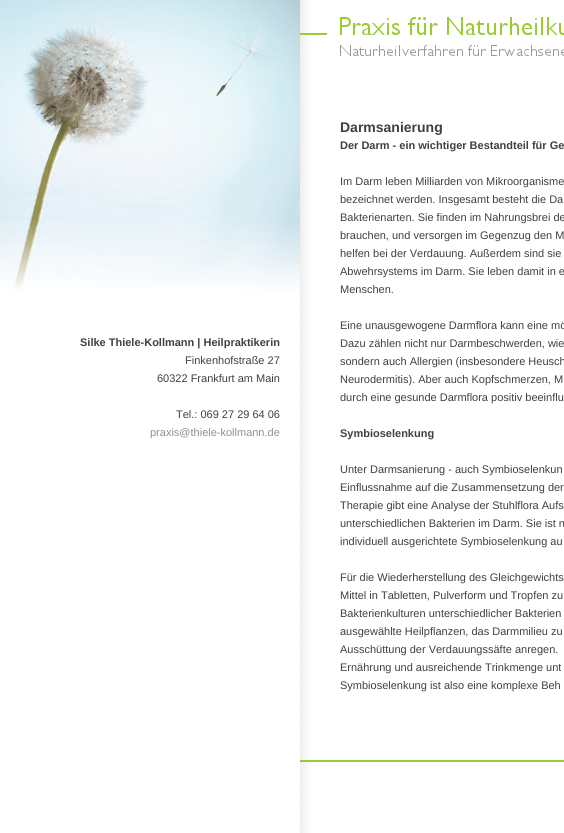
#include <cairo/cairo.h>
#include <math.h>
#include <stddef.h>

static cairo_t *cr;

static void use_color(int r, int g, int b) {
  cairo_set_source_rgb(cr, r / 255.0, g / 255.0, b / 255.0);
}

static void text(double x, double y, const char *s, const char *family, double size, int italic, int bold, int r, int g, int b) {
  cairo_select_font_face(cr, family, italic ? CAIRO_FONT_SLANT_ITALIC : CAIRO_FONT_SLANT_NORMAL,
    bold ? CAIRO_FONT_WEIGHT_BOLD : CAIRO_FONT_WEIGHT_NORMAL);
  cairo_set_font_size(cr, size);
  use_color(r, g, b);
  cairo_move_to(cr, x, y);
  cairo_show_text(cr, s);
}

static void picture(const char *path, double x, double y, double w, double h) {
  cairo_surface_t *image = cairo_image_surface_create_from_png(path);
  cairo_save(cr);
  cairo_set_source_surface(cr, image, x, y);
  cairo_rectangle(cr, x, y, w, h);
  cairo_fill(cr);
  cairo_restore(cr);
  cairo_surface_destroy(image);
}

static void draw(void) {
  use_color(255, 255, 255);
  cairo_paint(cr);
  picture("img_01.png", 0, 0, 564, 833);
  picture("img_02.png", 0, 0, 300, 290);
  picture("img_03.png", 300, 17, 264, 39);
  picture("img_04.png", 300, 744, 264, 18);
  text(80, 346, "Silke Thiele-Kollmann | Heilpraktikerin", "Liberation Sans", 11, 0, 1, 64, 64, 64);
  text(185, 364, "Finkenhofstraße 27", "Liberation Sans", 11, 0, 0, 64, 64, 64);
  text(157, 382, "60322 Frankfurt am Main", "Liberation Sans", 11, 0, 0, 64, 64, 64);
  text(176, 418, "Tel.: 069 27 29 64 06", "Liberation Sans", 11, 0, 0, 64, 64, 64);
  text(150, 436, "praxis@thiele-kollmann.de", "Liberation Sans", 11, 0, 0, 144, 144, 144);
  text(340, 132, "Darmsanierung", "Liberation Sans", 14, 0, 1, 64, 64, 64);
  text(340, 149, "Der Darm - ein wichtiger Bestandteil für Ge", "Liberation Sans", 11, 0, 1, 64, 64, 64);
  text(340, 185, "Im Darm leben Milliarden von Mikroorganisme", "Liberation Sans", 11, 0, 0, 64, 64, 64);
  text(340, 203, "bezeichnet werden. Insgesamt besteht die Da", "Liberation Sans", 11, 0, 0, 64, 64, 64);
  text(340, 221, "Bakterienarten. Sie finden im Nahrungsbrei de", "Liberation Sans", 11, 0, 0, 64, 64, 64);
  text(340, 239, "brauchen, und versorgen im Gegenzug den M", "Liberation Sans", 11, 0, 0, 64, 64, 64);
  text(340, 257, "helfen bei der Verdauung. Außerdem sind sie", "Liberation Sans", 11, 0, 0, 64, 64, 64);
  text(340, 275, "Abwehrsystems im Darm. Sie leben damit in e", "Liberation Sans", 11, 0, 0, 64, 64, 64);
  text(340, 293, "Menschen.", "Liberation Sans", 11, 0, 0, 64, 64, 64);
  text(340, 329, "Eine unausgewogene Darmflora kann eine mö", "Liberation Sans", 11, 0, 0, 64, 64, 64);
  text(340, 347, "Dazu zählen nicht nur Darmbeschwerden, wie", "Liberation Sans", 11, 0, 0, 64, 64, 64);
  text(340, 365, "sondern auch Allergien (insbesondere Heusch", "Liberation Sans", 11, 0, 0, 64, 64, 64);
  text(340, 383, "Neurodermitis). Aber auch Kopfschmerzen, M", "Liberation Sans", 11, 0, 0, 64, 64, 64);
  text(340, 401, "durch eine gesunde Darmflora positiv beeinflu", "Liberation Sans", 11, 0, 0, 64, 64, 64);
  text(340, 437, "Symbioselenkung", "Liberation Sans", 11, 0, 1, 64, 64, 64);
  text(340, 473, "Unter Darmsanierung - auch Symbioselenkun", "Liberation Sans", 11, 0, 0, 64, 64, 64);
  text(340, 491, "Einflussnahme auf die Zusammensetzung der", "Liberation Sans", 11, 0, 0, 64, 64, 64);
  text(340, 509, "Therapie gibt eine Analyse der Stuhlflora Aufs", "Liberation Sans", 11, 0, 0, 64, 64, 64);
  text(340, 527, "unterschiedlichen Bakterien im Darm. Sie ist n", "Liberation Sans", 11, 0, 0, 64, 64, 64);
  text(340, 545, "individuell ausgerichtete Symbioselenkung au", "Liberation Sans", 11, 0, 0, 64, 64, 64);
  text(340, 581, "Für die Wiederherstellung des Gleichgewichts", "Liberation Sans", 11, 0, 0, 64, 64, 64);
  text(340, 599, "Mittel in Tabletten, Pulverform und Tropfen zu", "Liberation Sans", 11, 0, 0, 64, 64, 64);
  text(340, 617, "Bakterienkulturen unterschiedlicher Bakterien", "Liberation Sans", 11, 0, 0, 64, 64, 64);
  text(340, 635, "ausgewählte Heilpflanzen, das Darmmilieu zu", "Liberation Sans", 11, 0, 0, 64, 64, 64);
  text(340, 653, "Ausschüttung der Verdauungssäfte anregen.", "Liberation Sans", 11, 0, 0, 64, 64, 64);
  text(340, 671, "Ernährung und ausreichende Trinkmenge unt", "Liberation Sans", 11, 0, 0, 64, 64, 64);
  text(340, 689, "Symbioselenkung ist also eine komplexe Beh", "Liberation Sans", 11, 0, 0, 64, 64, 64);
}

int main(void) {
  cairo_surface_t *surface = cairo_image_surface_create(CAIRO_FORMAT_RGB24, 564, 833);
  cr = cairo_create(surface);
  cairo_font_options_t *options = cairo_font_options_create();
  cairo_font_options_set_hint_metrics(options, CAIRO_HINT_METRICS_OFF);
  cairo_font_options_set_hint_style(options, CAIRO_HINT_STYLE_NONE);
  cairo_set_font_options(cr, options);
  cairo_set_miter_limit(cr, 4);
  draw();
  cairo_surface_write_to_png(surface, "out.png");
  cairo_font_options_destroy(options);
  cairo_destroy(cr);
  cairo_surface_destroy(surface);
  return 0;
}
